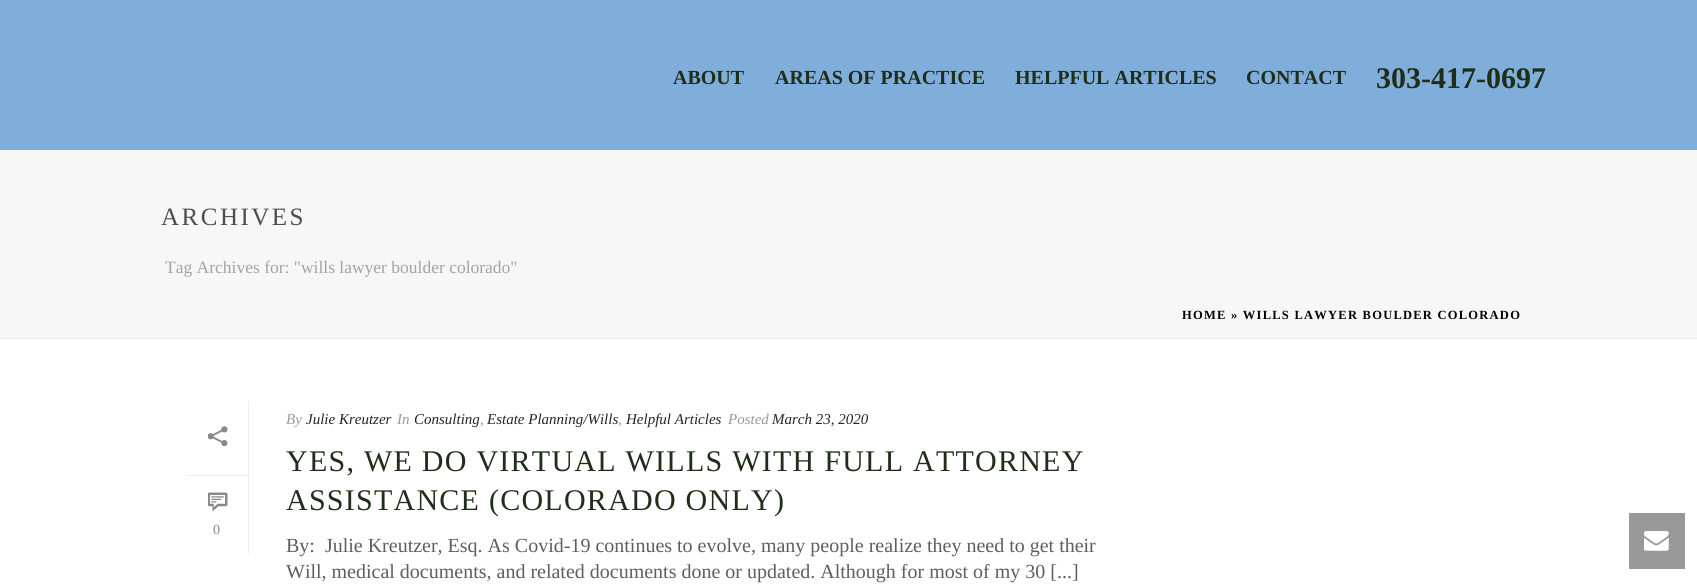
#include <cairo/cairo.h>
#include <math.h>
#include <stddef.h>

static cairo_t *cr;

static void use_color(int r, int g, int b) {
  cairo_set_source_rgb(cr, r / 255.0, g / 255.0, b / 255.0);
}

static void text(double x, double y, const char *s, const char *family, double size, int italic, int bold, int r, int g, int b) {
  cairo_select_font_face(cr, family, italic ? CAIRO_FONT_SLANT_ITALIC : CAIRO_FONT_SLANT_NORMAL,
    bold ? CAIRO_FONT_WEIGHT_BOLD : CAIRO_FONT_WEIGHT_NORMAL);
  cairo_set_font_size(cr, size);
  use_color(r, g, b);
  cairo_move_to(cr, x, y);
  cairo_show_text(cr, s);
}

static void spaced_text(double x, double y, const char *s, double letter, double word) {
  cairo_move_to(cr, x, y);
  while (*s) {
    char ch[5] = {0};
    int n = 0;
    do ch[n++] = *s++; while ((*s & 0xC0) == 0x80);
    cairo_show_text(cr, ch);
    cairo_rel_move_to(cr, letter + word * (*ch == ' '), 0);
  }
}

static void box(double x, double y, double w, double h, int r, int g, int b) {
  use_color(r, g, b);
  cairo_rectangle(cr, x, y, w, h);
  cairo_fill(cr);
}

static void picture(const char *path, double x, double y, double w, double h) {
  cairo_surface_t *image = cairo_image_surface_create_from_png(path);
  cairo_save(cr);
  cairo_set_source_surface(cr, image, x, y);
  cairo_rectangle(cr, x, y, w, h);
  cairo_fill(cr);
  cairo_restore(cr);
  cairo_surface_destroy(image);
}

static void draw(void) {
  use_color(255, 255, 255);
  cairo_paint(cr);
  box(0, 150, 1697, 188, 247, 247, 247);
  box(0, 338, 1697, 1, 237, 237, 237);
  box(0, 0, 1697, 150, 128, 174, 219);
  box(248, 401, 1, 153, 239, 239, 239);
  box(186, 475, 62, 1, 239, 239, 239);
  picture("img_01.png", 208, 426, 20, 20);
  picture("img_02.png", 208, 492, 20, 19);
  box(1629, 513, 56, 56, 153, 153, 153);
  picture("img_03.png", 1644, 531, 25, 20);
  text(673, 84, "ABOUT", "Liberation Serif", 20, 0, 1, 31, 46, 24);
  text(775, 84, "AREAS OF PRACTICE", "Liberation Serif", 20, 0, 1, 31, 46, 24);
  text(1015, 84, "HELPFUL ARTICLES", "Liberation Serif", 20, 0, 1, 31, 46, 24);
  text(1246, 84, "CONTACT", "Liberation Serif", 20, 0, 1, 31, 46, 24);
  text(1376, 88, "303-417-0697", "Liberation Serif", 30, 0, 1, 31, 46, 24);
  cairo_select_font_face(cr, "Liberation Serif", CAIRO_FONT_SLANT_NORMAL, CAIRO_FONT_WEIGHT_NORMAL);
  cairo_set_font_size(cr, 25);
  use_color(77, 77, 77);
  spaced_text(161, 225, "ARCHIVES", 2.5, 0);
  text(165, 273, "Tag Archives for: \"wills lawyer boulder colorado\"", "Liberation Serif", 17.5, 0, 0, 163, 163, 163);
  cairo_select_font_face(cr, "Liberation Serif", CAIRO_FONT_SLANT_NORMAL, CAIRO_FONT_WEIGHT_BOLD);
  cairo_set_font_size(cr, 12.5);
  use_color(0, 0, 0);
  spaced_text(1182, 319, "HOME » WILLS LAWYER BOULDER COLORADO", 1.25, 0);
  text(213, 534, "0", "Liberation Serif", 14, 0, 0, 137, 137, 137);
  text(286, 424, "By", "Liberation Serif", 15, 1, 0, 153, 153, 153);
  text(306, 424, "Julie Kreutzer", "Liberation Serif", 15, 1, 0, 37, 37, 37);
  text(397, 424, "In", "Liberation Serif", 15, 1, 0, 153, 153, 153);
  text(414, 424, "Consulting", "Liberation Serif", 15, 1, 0, 37, 37, 37);
  text(487, 424, "Estate Planning/Wills", "Liberation Serif", 15, 1, 0, 37, 37, 37);
  text(626, 424, "Helpful Articles", "Liberation Serif", 15, 1, 0, 37, 37, 37);
  text(480, 424, ",", "Liberation Serif", 15, 1, 0, 153, 153, 153);
  text(618, 424, ",", "Liberation Serif", 15, 1, 0, 153, 153, 153);
  text(728, 424, "Posted", "Liberation Serif", 15, 1, 0, 153, 153, 153);
  text(772, 424, "March 23, 2020", "Liberation Serif", 15, 1, 0, 37, 37, 37);
  cairo_select_font_face(cr, "Liberation Serif", CAIRO_FONT_SLANT_NORMAL, CAIRO_FONT_WEIGHT_NORMAL);
  cairo_set_font_size(cr, 30);
  use_color(31, 46, 24);
  spaced_text(286, 471, "YES, WE DO VIRTUAL WILLS WITH FULL ATTORNEY", 1.25, 0);
  spaced_text(286, 510, "ASSISTANCE (COLORADO ONLY)", 1.25, 0);
  text(286, 552, "By:  Julie Kreutzer, Esq. As Covid-19 continues to evolve, many people realize they need to get their", "Liberation Serif", 20, 0, 0, 94, 94, 94);
  text(286, 578, "Will, medical documents, and related documents done or updated. Although for most of my 30 [...]", "Liberation Serif", 20, 0, 0, 94, 94, 94);
}

int main(void) {
  cairo_surface_t *surface = cairo_image_surface_create(CAIRO_FORMAT_RGB24, 1697, 587);
  cr = cairo_create(surface);
  cairo_font_options_t *options = cairo_font_options_create();
  cairo_font_options_set_hint_metrics(options, CAIRO_HINT_METRICS_OFF);
  cairo_font_options_set_hint_style(options, CAIRO_HINT_STYLE_NONE);
  cairo_set_font_options(cr, options);
  cairo_set_miter_limit(cr, 4);
  draw();
  cairo_surface_write_to_png(surface, "out.png");
  cairo_font_options_destroy(options);
  cairo_destroy(cr);
  cairo_surface_destroy(surface);
  return 0;
}
